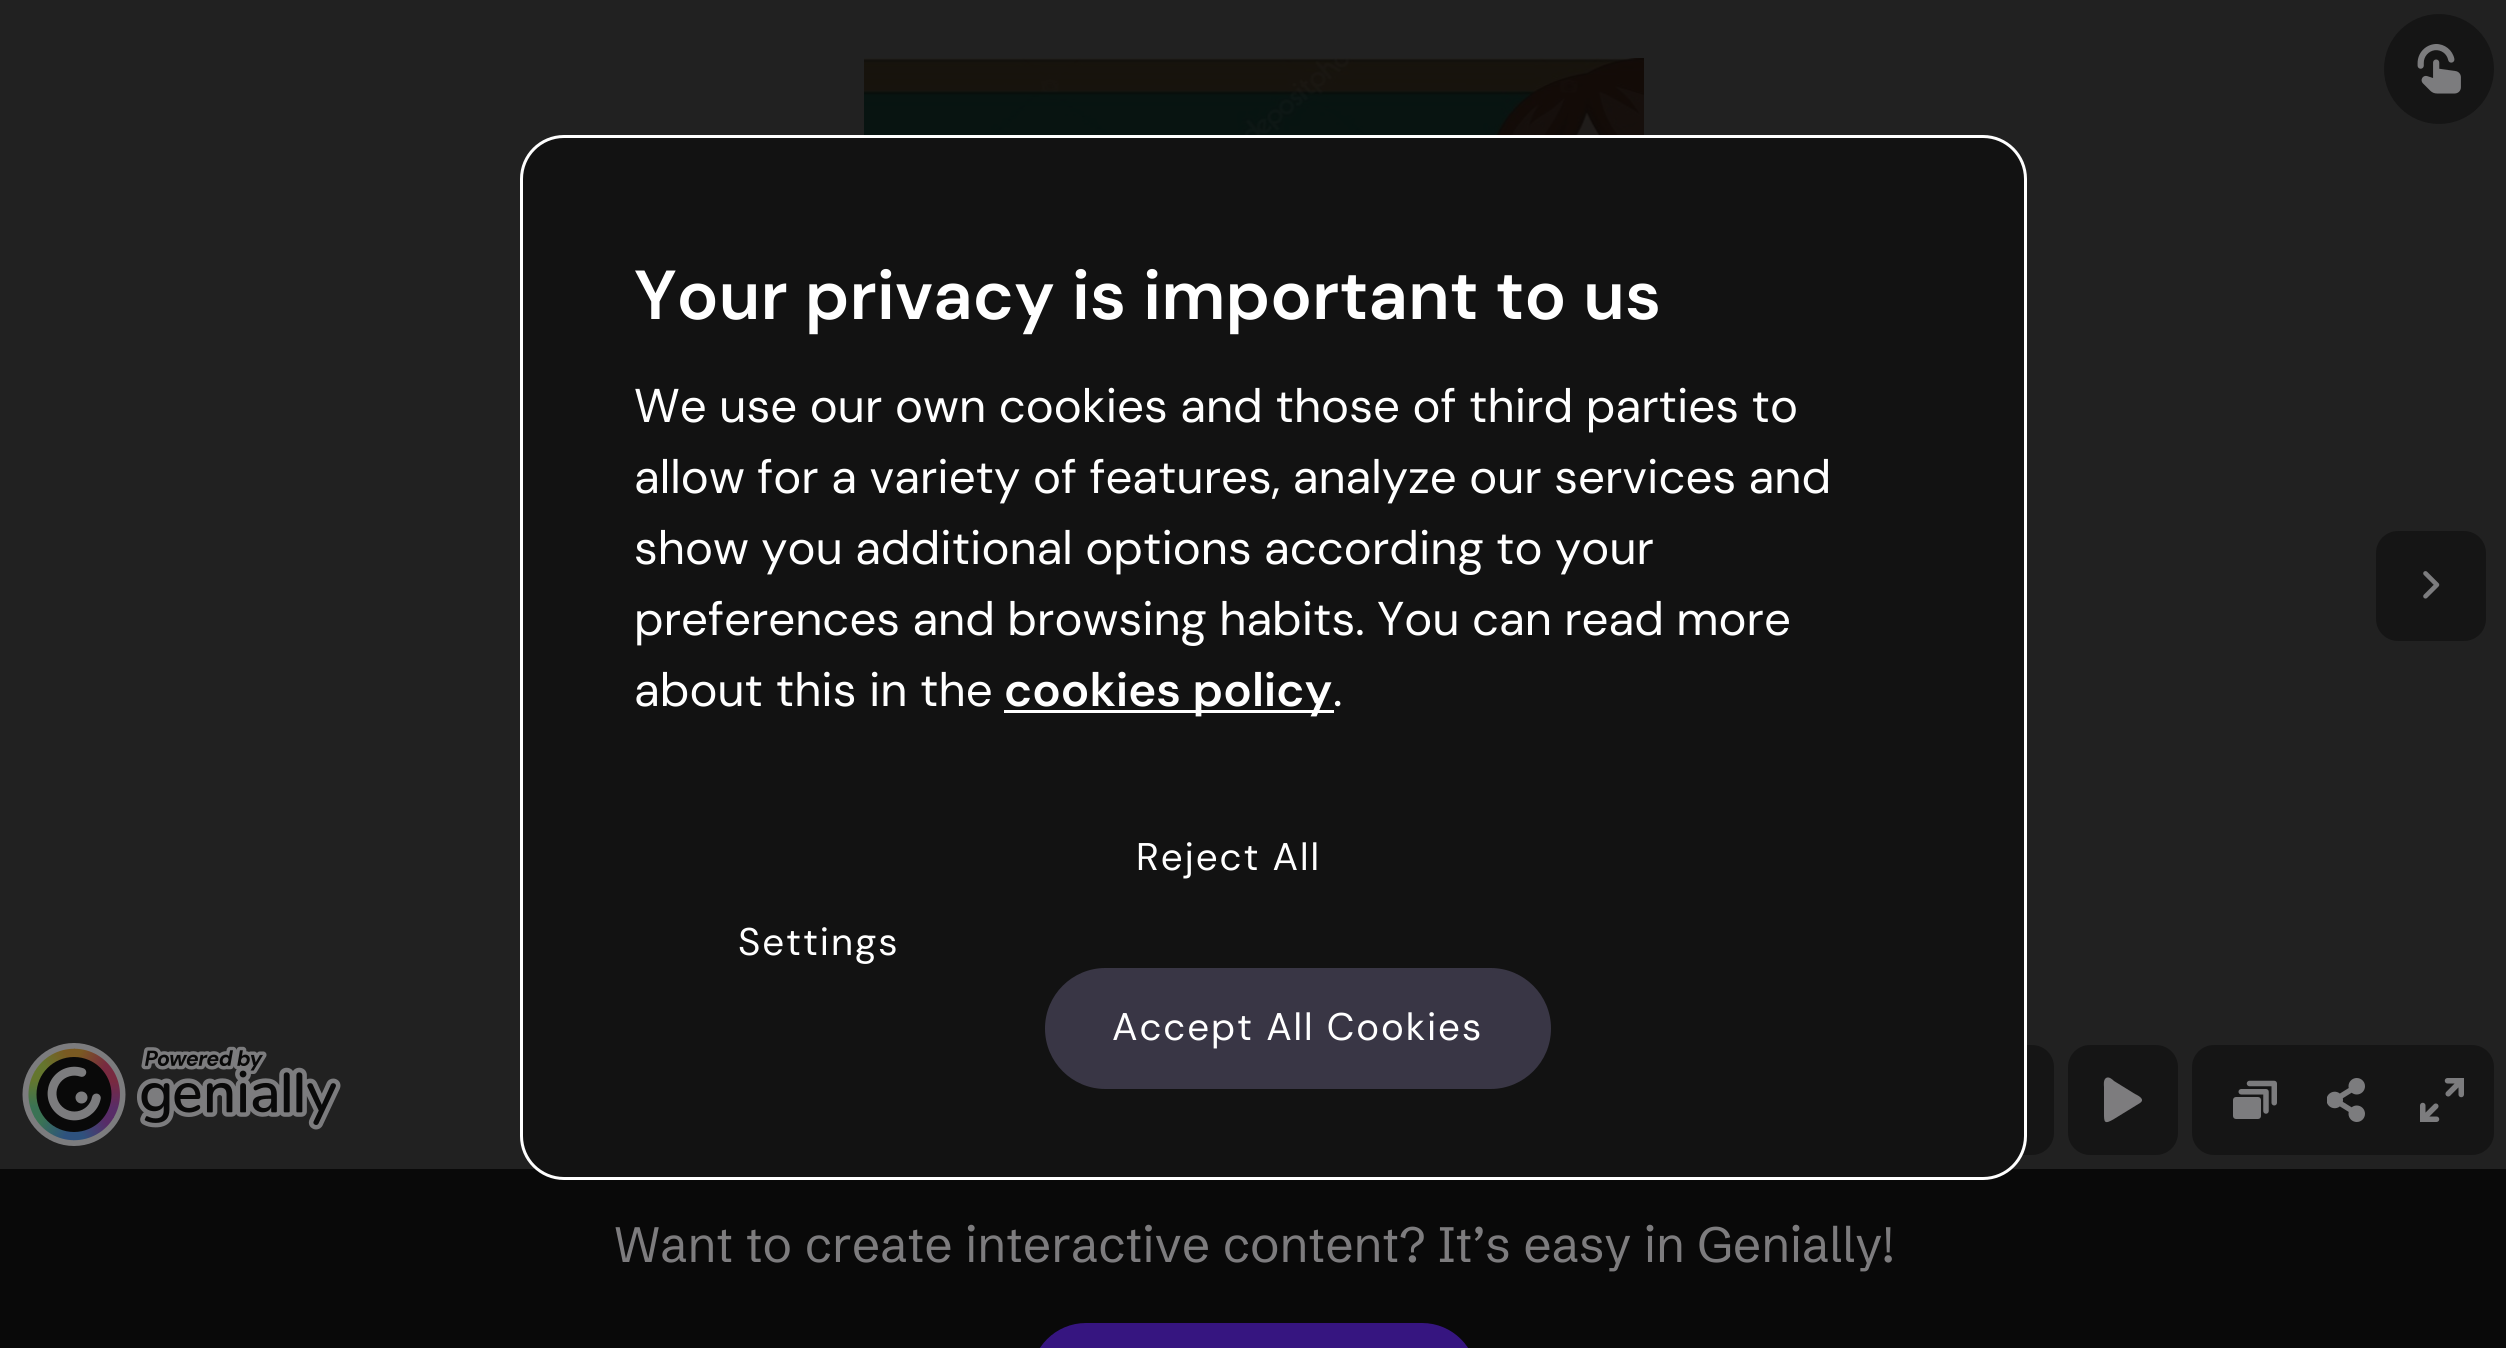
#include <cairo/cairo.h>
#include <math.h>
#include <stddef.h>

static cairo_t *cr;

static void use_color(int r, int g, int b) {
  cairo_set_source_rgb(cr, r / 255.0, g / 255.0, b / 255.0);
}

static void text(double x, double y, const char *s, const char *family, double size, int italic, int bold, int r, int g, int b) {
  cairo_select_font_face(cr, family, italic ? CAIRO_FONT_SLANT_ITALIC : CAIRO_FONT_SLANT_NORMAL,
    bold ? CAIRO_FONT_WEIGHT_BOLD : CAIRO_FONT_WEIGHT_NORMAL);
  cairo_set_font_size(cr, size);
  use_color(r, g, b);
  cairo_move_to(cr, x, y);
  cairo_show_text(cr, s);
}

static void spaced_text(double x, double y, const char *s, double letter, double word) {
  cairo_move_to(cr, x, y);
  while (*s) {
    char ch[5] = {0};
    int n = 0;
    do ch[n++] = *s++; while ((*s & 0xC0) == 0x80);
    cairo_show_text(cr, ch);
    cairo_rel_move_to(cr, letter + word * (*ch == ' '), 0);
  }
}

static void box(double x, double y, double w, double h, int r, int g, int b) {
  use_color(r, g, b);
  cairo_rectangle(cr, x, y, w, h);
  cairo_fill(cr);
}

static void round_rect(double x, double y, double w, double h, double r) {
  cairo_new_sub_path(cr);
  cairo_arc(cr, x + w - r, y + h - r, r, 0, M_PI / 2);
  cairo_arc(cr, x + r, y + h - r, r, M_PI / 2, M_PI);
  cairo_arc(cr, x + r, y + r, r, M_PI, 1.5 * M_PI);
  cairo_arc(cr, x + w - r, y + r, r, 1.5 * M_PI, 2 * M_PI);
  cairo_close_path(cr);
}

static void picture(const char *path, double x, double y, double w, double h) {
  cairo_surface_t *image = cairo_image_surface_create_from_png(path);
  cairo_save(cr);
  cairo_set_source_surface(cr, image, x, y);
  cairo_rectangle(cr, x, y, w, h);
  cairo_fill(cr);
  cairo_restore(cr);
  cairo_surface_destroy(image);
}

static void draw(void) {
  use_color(33, 33, 33);
  cairo_paint(cr);
  use_color(21, 21, 21);
  round_rect(1944, 1045, 110, 110, 22);
  cairo_fill(cr);
  box(0, 1169, 2506, 179, 9, 9, 9);
  use_color(18, 18, 18);
  round_rect(521.5, 136.5, 1504, 1042, 42.5);
  cairo_fill_preserve(cr);
  use_color(255, 255, 255);
  cairo_set_line_width(cr, 3);
  cairo_stroke(cr);
  box(1004, 710, 330, 3, 255, 255, 255);
  use_color(57, 54, 69);
  round_rect(1043.5, 966.5, 509, 124, 62);
  cairo_fill_preserve(cr);
  use_color(18, 18, 18);
  cairo_stroke(cr);
  picture("img_01.png", 864, 58, 780, 77);
  use_color(21, 21, 21);
  cairo_arc(cr, 2439, 69, 55, 0, 2 * M_PI);
  cairo_fill(cr);
  picture("img_02.png", 2417, 44, 44, 50);
  round_rect(2376, 531, 110, 110, 22);
  cairo_fill(cr);
  picture("img_03.png", 2423, 571, 17, 28);
  round_rect(2068, 1045, 110, 110, 22);
  cairo_fill(cr);
  use_color(125, 124, 126);
  cairo_new_path(cr);
  cairo_move_to(cr, 2140, 1103);
  cairo_line_to(cr, 2114, 1119);
  cairo_curve_to(cr, 2104, 1125, 2104, 1122, 2104, 1113);
  cairo_line_to(cr, 2104, 1087);
  cairo_curve_to(cr, 2104, 1086, 2103, 1080, 2106, 1078);
  cairo_curve_to(cr, 2109, 1076, 2113, 1080, 2114, 1081);
  cairo_line_to(cr, 2135, 1094);
  cairo_curve_to(cr, 2137, 1095, 2146, 1099, 2140, 1103);
  cairo_close_path(cr);
  cairo_fill(cr);
  use_color(21, 21, 21);
  round_rect(2192, 1045, 302, 110, 22);
  cairo_fill(cr);
  picture("img_04.png", 2233, 1080, 44, 39);
  picture("img_05.png", 2327, 1078, 38, 44);
  picture("img_06.png", 2420, 1078, 44, 44);
  picture("img_07.png", 22, 1043, 319, 103);
  use_color(54, 21, 128);
  round_rect(1031, 1323, 446, 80, 55);
  cairo_fill(cr);
  text(634, 319, "Your privacy is important to us", "DM Sans SemiBold", 69.25, 0, 0, 255, 255, 255);
  text(634, 422, "We use our own cookies and those of third parties to", "DM Sans", 47.35, 0, 0, 255, 255, 255);
  spaced_text(634, 493, "allow for a variety of features, analyze our services and", 0, -0.1);
  spaced_text(634, 564, "show you additional options according to your", 0, -0.25);
  spaced_text(634, 635, "preferences and browsing habits. You can read more", 0, -0.25);
  text(634, 706, "about this in the", "DM Sans", 47.35, 0, 0, 255, 255, 255);
  text(1004, 706, "cookies policy", "DM Sans SemiBold", 47.35, 0, 0, 255, 255, 255);
  text(1333, 706, ".", "DM Sans", 47.35, 0, 0, 255, 255, 255);
  cairo_set_font_size(cr, 38.5);
  spaced_text(738, 955, "Settings", 1.9, 0);
  spaced_text(1136, 870, "Reject All", 1.9, 0);
  spaced_text(1112, 1040, "Accept All Cookies", 1.9, 0);
  text(614, 1262, "Want to create interactive content? It’s easy in Genially!", "Schibsted Grotesk", 49.5, 0, 0, 125, 124, 126);
}

int main(void) {
  cairo_surface_t *surface = cairo_image_surface_create(CAIRO_FORMAT_RGB24, 2506, 1348);
  cr = cairo_create(surface);
  cairo_font_options_t *options = cairo_font_options_create();
  cairo_font_options_set_hint_metrics(options, CAIRO_HINT_METRICS_OFF);
  cairo_font_options_set_hint_style(options, CAIRO_HINT_STYLE_NONE);
  cairo_set_font_options(cr, options);
  cairo_set_miter_limit(cr, 4);
  draw();
  cairo_surface_write_to_png(surface, "out.png");
  cairo_font_options_destroy(options);
  cairo_destroy(cr);
  cairo_surface_destroy(surface);
  return 0;
}
